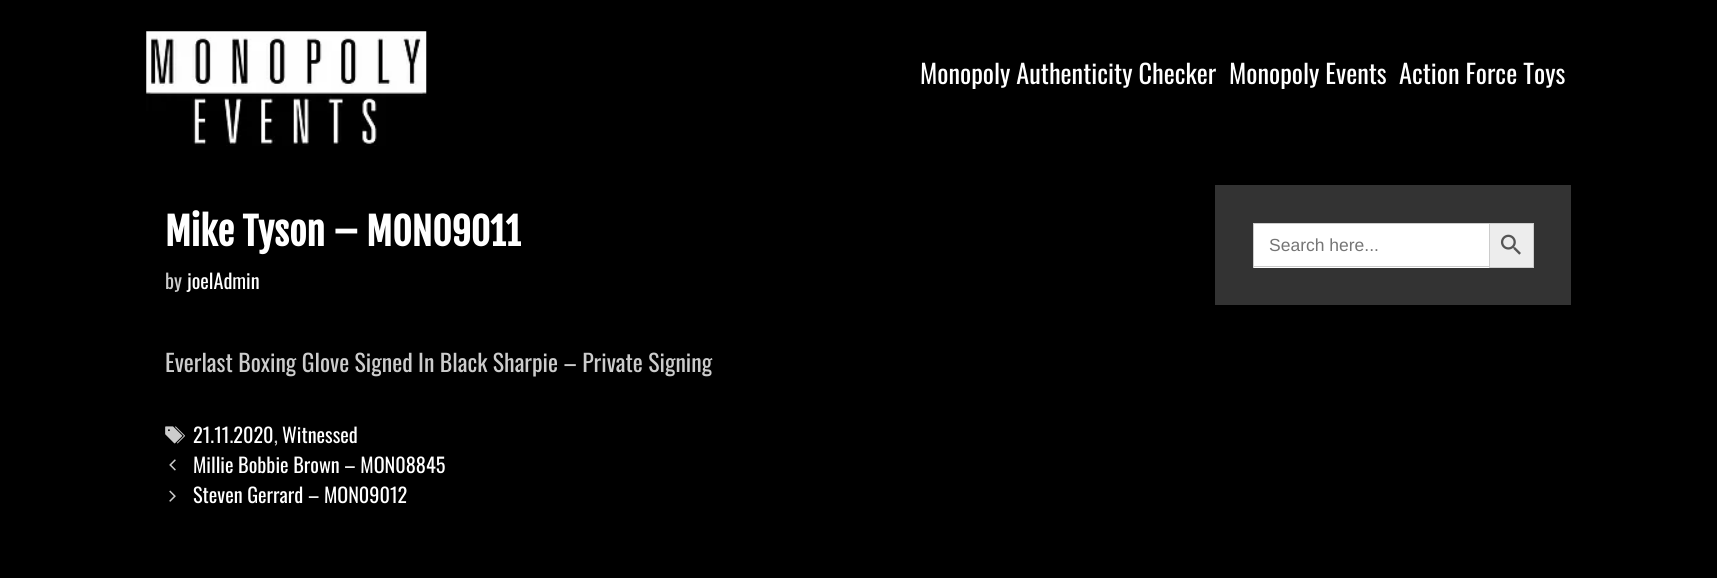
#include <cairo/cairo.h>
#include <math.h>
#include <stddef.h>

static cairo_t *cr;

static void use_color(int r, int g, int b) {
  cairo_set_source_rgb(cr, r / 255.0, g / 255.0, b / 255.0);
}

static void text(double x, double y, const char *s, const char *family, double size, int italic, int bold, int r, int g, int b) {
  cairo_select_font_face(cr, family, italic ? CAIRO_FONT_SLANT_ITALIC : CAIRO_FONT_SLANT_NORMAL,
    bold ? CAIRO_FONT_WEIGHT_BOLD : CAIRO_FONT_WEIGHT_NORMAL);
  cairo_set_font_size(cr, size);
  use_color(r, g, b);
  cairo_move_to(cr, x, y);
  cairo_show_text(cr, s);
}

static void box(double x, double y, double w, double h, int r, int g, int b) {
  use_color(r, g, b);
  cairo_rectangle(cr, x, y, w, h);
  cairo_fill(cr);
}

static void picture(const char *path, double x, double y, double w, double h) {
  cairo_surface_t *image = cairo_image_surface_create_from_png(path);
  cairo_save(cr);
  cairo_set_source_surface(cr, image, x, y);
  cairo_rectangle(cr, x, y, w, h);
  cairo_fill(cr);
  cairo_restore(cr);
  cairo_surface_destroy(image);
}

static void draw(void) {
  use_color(0, 0, 0);
  cairo_paint(cr);
  picture("img_01.png", 146, 31, 281, 115);
  picture("img_02.png", 165, 426, 20, 18);
  picture("img_03.png", 169, 459, 7, 12);
  picture("img_04.png", 169, 490, 7, 12);
  box(1215, 185, 356, 120, 51, 51, 51);
  box(1254, 224, 235, 44, 255, 255, 255);
  box(1253, 223, 236, 1, 204, 204, 204);
  box(1253, 266, 236, 1, 204, 204, 204);
  box(1253, 223, 1, 45, 204, 204, 204);
  use_color(237, 237, 237);
  cairo_rectangle(cr, 1489.5, 223.5, 44, 44);
  cairo_fill_preserve(cr);
  use_color(204, 204, 204);
  cairo_set_line_width(cr, 1);
  cairo_stroke(cr);
  picture("img_05.png", 1500, 234, 21, 21);
  text(920, 84, "Monopoly Authenticity Checker", "Oswald", 26.25, 0, 0, 255, 255, 255);
  text(1229, 84, "Monopoly Events", "Oswald", 26.25, 0, 0, 255, 255, 255);
  text(1399, 84, "Action Force Toys", "Oswald", 26.25, 0, 0, 255, 255, 255);
  text(165, 246, "Mike Tyson – MON09011", "Fjalla One", 37.5, 0, 1, 255, 255, 255);
  text(165, 289, "by", "Oswald", 20.25, 0, 0, 204, 204, 204);
  text(187, 289, "joelAdmin", "Oswald", 20.25, 0, 0, 255, 255, 255);
  text(165, 372, "Everlast Boxing Glove Signed In Black Sharpie – Private Signing", "Oswald", 23.75, 0, 0, 204, 204, 204);
  text(193, 443, "21.11.2020", "Oswald", 20.25, 0, 0, 255, 255, 255);
  text(274, 443, ",", "Oswald", 20.25, 0, 0, 204, 204, 204);
  text(282, 443, "Witnessed", "Oswald", 20.25, 0, 0, 255, 255, 255);
  text(193, 473, "Millie Bobbie Brown – MON08845", "Oswald", 20.25, 0, 0, 255, 255, 255);
  text(193, 503, "Steven Gerrard – MON09012", "Oswald", 20.25, 0, 0, 255, 255, 255);
  text(1269, 251, "Search here...", "Liberation Sans", 17.5, 0, 0, 117, 117, 117);
}

int main(void) {
  cairo_surface_t *surface = cairo_image_surface_create(CAIRO_FORMAT_RGB24, 1717, 578);
  cr = cairo_create(surface);
  cairo_font_options_t *options = cairo_font_options_create();
  cairo_font_options_set_hint_metrics(options, CAIRO_HINT_METRICS_OFF);
  cairo_font_options_set_hint_style(options, CAIRO_HINT_STYLE_NONE);
  cairo_set_font_options(cr, options);
  cairo_set_miter_limit(cr, 4);
  draw();
  cairo_surface_write_to_png(surface, "out.png");
  cairo_font_options_destroy(options);
  cairo_destroy(cr);
  cairo_surface_destroy(surface);
  return 0;
}
